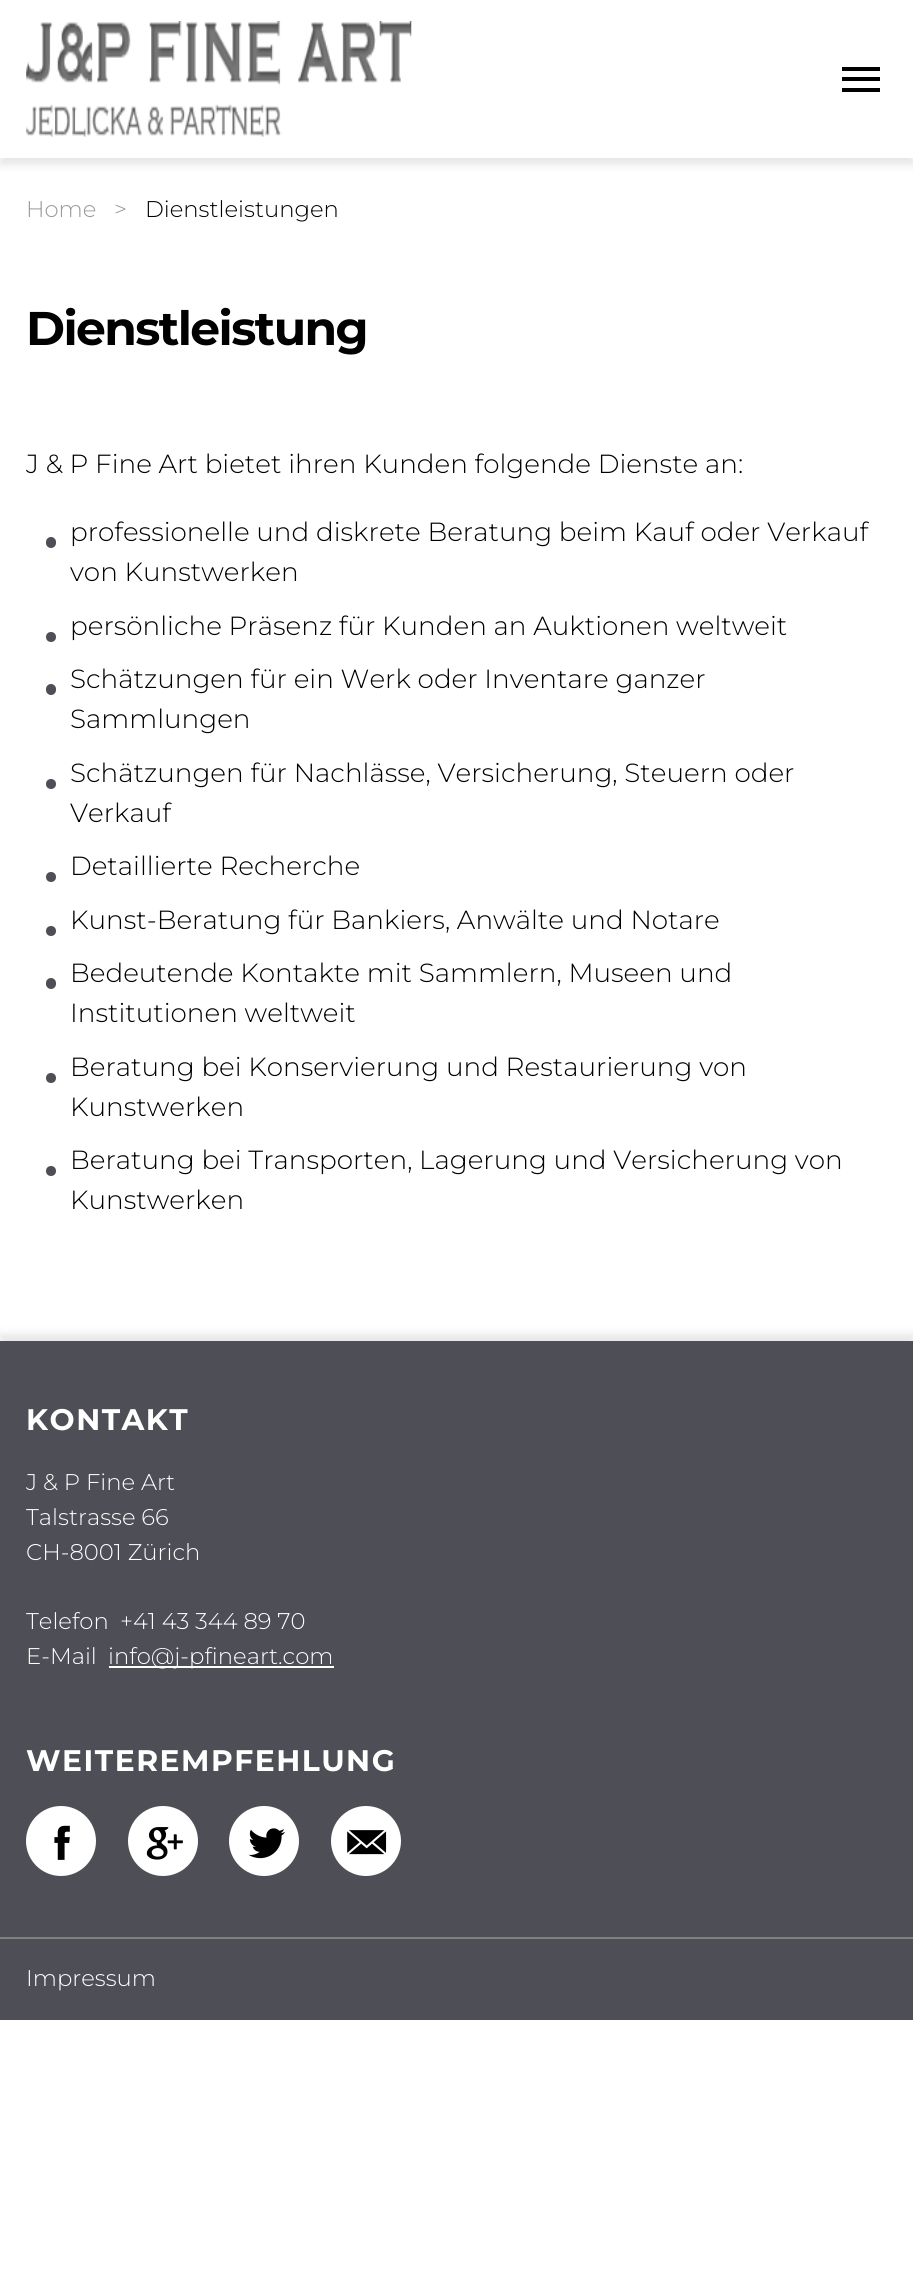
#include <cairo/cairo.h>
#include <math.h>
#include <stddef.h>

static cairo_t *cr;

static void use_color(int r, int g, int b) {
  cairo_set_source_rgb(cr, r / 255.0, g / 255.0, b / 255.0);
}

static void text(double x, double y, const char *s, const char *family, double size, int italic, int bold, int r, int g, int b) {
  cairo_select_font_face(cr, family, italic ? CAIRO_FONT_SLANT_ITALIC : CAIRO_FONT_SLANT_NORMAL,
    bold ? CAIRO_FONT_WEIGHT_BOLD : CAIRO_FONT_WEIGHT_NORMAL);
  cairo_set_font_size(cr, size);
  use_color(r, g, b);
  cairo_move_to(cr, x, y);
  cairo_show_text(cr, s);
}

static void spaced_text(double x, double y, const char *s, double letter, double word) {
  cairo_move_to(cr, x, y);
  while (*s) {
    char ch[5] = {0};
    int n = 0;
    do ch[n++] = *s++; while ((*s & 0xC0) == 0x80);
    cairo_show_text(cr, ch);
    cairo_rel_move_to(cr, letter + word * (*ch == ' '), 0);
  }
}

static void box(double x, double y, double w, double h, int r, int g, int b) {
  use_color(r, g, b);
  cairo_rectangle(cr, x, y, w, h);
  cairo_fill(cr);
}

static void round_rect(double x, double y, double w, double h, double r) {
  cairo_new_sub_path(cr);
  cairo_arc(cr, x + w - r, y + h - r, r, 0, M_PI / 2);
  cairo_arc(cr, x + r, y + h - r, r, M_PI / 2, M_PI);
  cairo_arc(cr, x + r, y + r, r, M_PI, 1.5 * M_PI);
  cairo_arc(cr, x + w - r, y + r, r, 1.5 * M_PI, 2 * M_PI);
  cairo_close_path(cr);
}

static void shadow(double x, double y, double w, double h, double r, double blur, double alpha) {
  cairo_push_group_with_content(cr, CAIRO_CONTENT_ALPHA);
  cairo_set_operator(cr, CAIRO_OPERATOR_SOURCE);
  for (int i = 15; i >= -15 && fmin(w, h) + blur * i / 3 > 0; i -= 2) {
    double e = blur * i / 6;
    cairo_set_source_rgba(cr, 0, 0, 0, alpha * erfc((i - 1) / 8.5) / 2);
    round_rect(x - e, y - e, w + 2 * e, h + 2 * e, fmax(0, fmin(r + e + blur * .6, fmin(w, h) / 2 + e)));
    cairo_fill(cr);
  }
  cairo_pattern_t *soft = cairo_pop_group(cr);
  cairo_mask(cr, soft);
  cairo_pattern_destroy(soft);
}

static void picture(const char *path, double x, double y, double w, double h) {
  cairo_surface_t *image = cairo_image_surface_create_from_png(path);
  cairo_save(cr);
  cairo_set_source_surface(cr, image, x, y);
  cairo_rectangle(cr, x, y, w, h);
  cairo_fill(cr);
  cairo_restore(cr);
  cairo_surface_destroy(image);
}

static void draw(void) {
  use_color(255, 255, 255);
  cairo_paint(cr);
  use_color(0, 0, 0);
  shadow(0, 7, 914, 158, 0, 4.5, 0.1);
  box(0, 1, 913, 157, 255, 255, 255);
  picture("img_01.png", 26, 21, 386, 116);
  box(842, 77, 38, 4, 0, 0, 0);
  box(842, 67, 38, 4, 0, 0, 0);
  box(842, 88, 38, 4, 0, 0, 0);
  use_color(78, 78, 86);
  round_rect(46, 537, 10, 11, 5);
  cairo_fill(cr);
  cairo_arc(cr, 51, 637, 5, 0, 2 * M_PI);
  cairo_fill(cr);
  round_rect(46, 684, 10, 11, 5);
  cairo_fill(cr);
  cairo_arc(cr, 51, 784, 5, 0, 2 * M_PI);
  cairo_fill(cr);
  cairo_arc(cr, 51, 877, 5, 0, 2 * M_PI);
  cairo_fill(cr);
  cairo_arc(cr, 51, 931, 5, 0, 2 * M_PI);
  cairo_fill(cr);
  round_rect(46, 978, 10, 11, 5);
  cairo_fill(cr);
  cairo_arc(cr, 51, 1078, 5, 0, 2 * M_PI);
  cairo_fill(cr);
  cairo_arc(cr, 51, 1171, 5, 0, 2 * M_PI);
  cairo_fill(cr);
  use_color(0, 0, 0);
  shadow(0, 1334, 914, 679, 0, 4.5, 0.1);
  box(0, 1341, 913, 596, 78, 78, 86);
  box(109, 1666, 225, 2, 255, 255, 255);
  cairo_arc(cr, 61, 1841, 35, 0, 2 * M_PI);
  cairo_fill(cr);
  picture("img_02.png", 54, 1825, 16, 35);
  cairo_arc(cr, 163, 1841, 35, 0, 2 * M_PI);
  cairo_fill(cr);
  picture("img_03.png", 146, 1827, 37, 33);
  cairo_arc(cr, 264, 1841, 35, 0, 2 * M_PI);
  cairo_fill(cr);
  picture("img_04.png", 248, 1828, 37, 31);
  cairo_arc(cr, 366, 1841, 35, 0, 2 * M_PI);
  cairo_fill(cr);
  picture("img_05.png", 347, 1830, 40, 25);
  box(0, 1939, 913, 81, 78, 78, 86);
  box(0, 1937, 913, 2, 128, 128, 128);
  text(26, 217, "Home", "Montserrat Thin", 22.75, 0, 0, 153, 153, 153);
  text(114, 217, ">", "Montserrat Thin", 22.75, 0, 0, 153, 153, 153);
  text(145, 217, "Dienstleistungen", "Montserrat Thin", 22.75, 0, 0, 0, 0, 0);
  cairo_select_font_face(cr, "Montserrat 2 Thin", CAIRO_FONT_SLANT_NORMAL, CAIRO_FONT_WEIGHT_NORMAL);
  cairo_set_font_size(cr, 47.25);
  spaced_text(26, 345, "Dienstleistung", -1.6, 0);
  text(26, 473, "J & P Fine Art bietet ihren Kunden folgende Dienste an:", "Montserrat Thin", 26.25, 0, 0, 0, 0, 0);
  text(70, 541, "professionelle und diskrete Beratung beim Kauf oder Verkauf", "Montserrat Thin", 26.25, 0, 0, 0, 0, 0);
  text(70, 581, "von Kunstwerken", "Montserrat Thin", 26.25, 0, 0, 0, 0, 0);
  text(70, 635, "persönliche Präsenz für Kunden an Auktionen weltweit", "Montserrat Thin", 26.25, 0, 0, 0, 0, 0);
  text(70, 688, "Schätzungen für ein Werk oder Inventare ganzer", "Montserrat Thin", 26.25, 0, 0, 0, 0, 0);
  text(70, 728, "Sammlungen", "Montserrat Thin", 26.25, 0, 0, 0, 0, 0);
  text(70, 782, "Schätzungen für Nachlässe, Versicherung, Steuern oder", "Montserrat Thin", 26.25, 0, 0, 0, 0, 0);
  text(70, 822, "Verkauf", "Montserrat Thin", 26.25, 0, 0, 0, 0, 0);
  text(70, 875, "Detaillierte Recherche", "Montserrat Thin", 26.25, 0, 0, 0, 0, 0);
  text(70, 929, "Kunst-Beratung für Bankiers, Anwälte und Notare", "Montserrat Thin", 26.25, 0, 0, 0, 0, 0);
  text(70, 982, "Bedeutende Kontakte mit Sammlern, Museen und", "Montserrat Thin", 26.25, 0, 0, 0, 0, 0);
  text(70, 1022, "Institutionen weltweit", "Montserrat Thin", 26.25, 0, 0, 0, 0, 0);
  text(70, 1076, "Beratung bei Konservierung und Restaurierung von", "Montserrat Thin", 26.25, 0, 0, 0, 0, 0);
  text(70, 1116, "Kunstwerken", "Montserrat Thin", 26.25, 0, 0, 0, 0, 0);
  text(70, 1169, "Beratung bei Transporten, Lagerung und Versicherung von", "Montserrat Thin", 26.25, 0, 0, 0, 0, 0);
  text(70, 1209, "Kunstwerken", "Montserrat Thin", 26.25, 0, 0, 0, 0, 0);
  cairo_select_font_face(cr, "Montserrat 2 Thin", CAIRO_FONT_SLANT_NORMAL, CAIRO_FONT_WEIGHT_NORMAL);
  cairo_set_font_size(cr, 29.75);
  use_color(255, 255, 255);
  spaced_text(26, 1430, "KONTAKT", 1.5, 0);
  text(26, 1490, "J & P Fine Art", "Montserrat Thin", 22.75, 0, 0, 255, 255, 255);
  text(26, 1525, "Talstrasse 66", "Montserrat Thin", 22.75, 0, 0, 255, 255, 255);
  text(26, 1560, "CH-8001 Zürich", "Montserrat Thin", 22.75, 0, 0, 255, 255, 255);
  text(26, 1629, "Telefon", "Montserrat Thin", 22.75, 0, 0, 255, 255, 255);
  text(120, 1629, "+41 43 344 89 70", "Montserrat Thin", 22.75, 0, 0, 255, 255, 255);
  text(26, 1664, "E-Mail", "Montserrat Thin", 22.75, 0, 0, 255, 255, 255);
  text(108, 1664, "info@j-pfineart.com", "Montserrat Thin", 22.75, 0, 0, 255, 255, 255);
  cairo_select_font_face(cr, "Montserrat 2 Thin", CAIRO_FONT_SLANT_NORMAL, CAIRO_FONT_WEIGHT_NORMAL);
  cairo_set_font_size(cr, 29.75);
  spaced_text(26, 1771, "WEITEREMPFEHLUNG", 1.5, 0);
  text(26, 1986, "Impressum", "Montserrat Thin", 22.75, 0, 0, 255, 255, 255);
}

int main(void) {
  cairo_surface_t *surface = cairo_image_surface_create(CAIRO_FORMAT_RGB24, 913, 2283);
  cr = cairo_create(surface);
  cairo_font_options_t *options = cairo_font_options_create();
  cairo_font_options_set_hint_metrics(options, CAIRO_HINT_METRICS_OFF);
  cairo_font_options_set_hint_style(options, CAIRO_HINT_STYLE_NONE);
  cairo_set_font_options(cr, options);
  cairo_set_miter_limit(cr, 4);
  draw();
  cairo_surface_write_to_png(surface, "out.png");
  cairo_font_options_destroy(options);
  cairo_destroy(cr);
  cairo_surface_destroy(surface);
  return 0;
}
